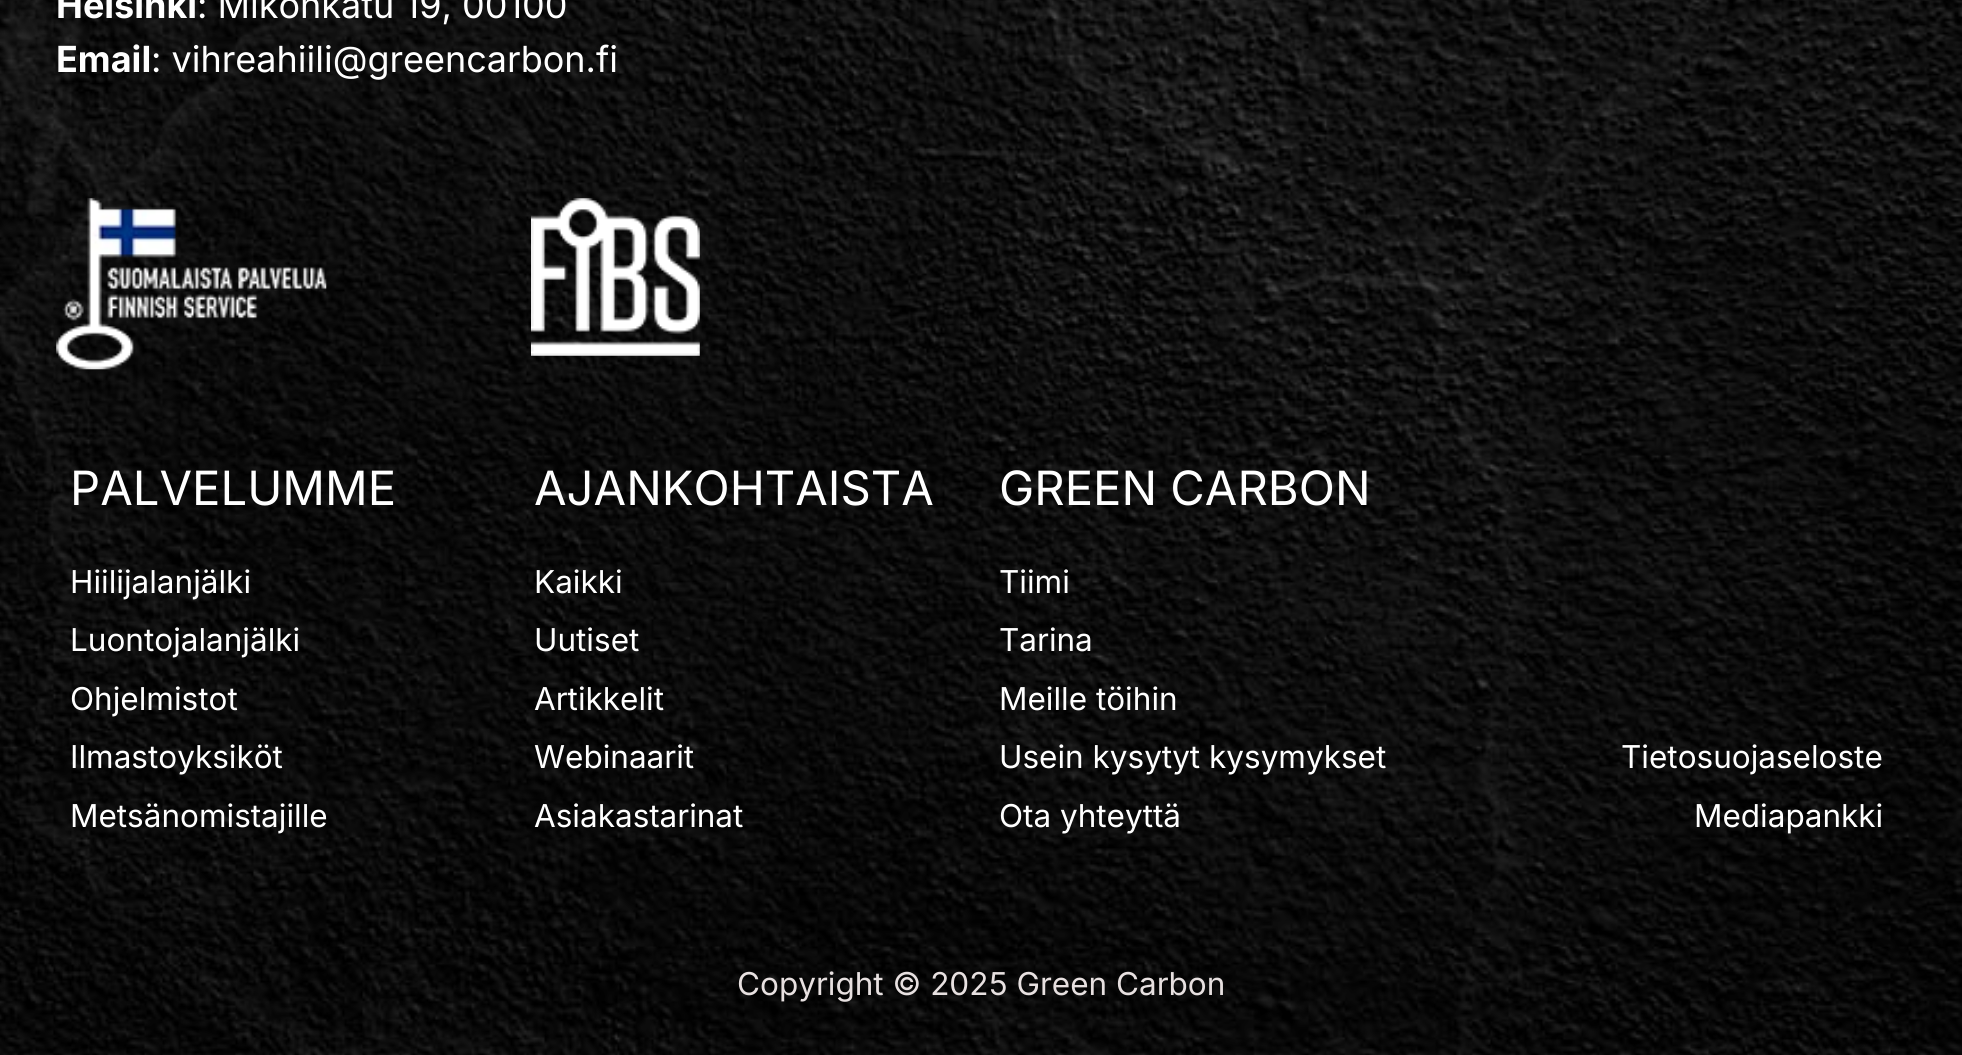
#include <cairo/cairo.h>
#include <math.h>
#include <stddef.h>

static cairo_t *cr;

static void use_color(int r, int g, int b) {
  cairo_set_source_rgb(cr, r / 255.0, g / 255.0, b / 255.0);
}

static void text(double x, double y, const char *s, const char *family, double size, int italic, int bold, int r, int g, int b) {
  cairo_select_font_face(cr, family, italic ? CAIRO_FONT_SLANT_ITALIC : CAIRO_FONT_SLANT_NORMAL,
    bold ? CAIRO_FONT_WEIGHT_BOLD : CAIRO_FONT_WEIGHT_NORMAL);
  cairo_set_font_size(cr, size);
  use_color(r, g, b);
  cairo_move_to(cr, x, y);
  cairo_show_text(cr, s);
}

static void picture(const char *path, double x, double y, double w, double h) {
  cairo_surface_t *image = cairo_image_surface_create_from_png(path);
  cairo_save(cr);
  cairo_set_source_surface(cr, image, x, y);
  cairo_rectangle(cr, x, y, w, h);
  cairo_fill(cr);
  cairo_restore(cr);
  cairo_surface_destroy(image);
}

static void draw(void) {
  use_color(255, 255, 255);
  cairo_paint(cr);
  picture("img_01.png", 0, 0, 1962, 1055);
  picture("img_02.png", 56, 198, 271, 172);
  picture("img_03.png", 531, 198, 169, 158);
  text(56, 18, "Helsinki", "Inter", 36, 0, 1, 255, 255, 255);
  text(197, 18, ": Mikonkatu 19, 00100", "Inter", 36, 0, 0, 255, 255, 255);
  text(56, 72, "Email", "Inter", 36, 0, 1, 255, 255, 255);
  text(151, 72, ": vihreahiili@greencarbon.fi", "Inter", 36, 0, 0, 255, 255, 255);
  text(70, 505, "PALVELUMME", "Inter", 47.25, 0, 0, 255, 255, 255);
  text(70, 593, "Hiilijalanjälki", "Inter", 31.5, 0, 0, 255, 255, 255);
  text(70, 651, "Luontojalanjälki", "Inter", 31.5, 0, 0, 255, 255, 255);
  text(70, 710, "Ohjelmistot", "Inter", 31.5, 0, 0, 255, 255, 255);
  text(70, 768, "Ilmastoyksiköt", "Inter", 31.5, 0, 0, 255, 255, 255);
  text(70, 827, "Metsänomistajille", "Inter", 31.5, 0, 0, 255, 255, 255);
  text(534, 505, "AJANKOHTAISTA", "Inter", 47.25, 0, 0, 255, 255, 255);
  text(534, 593, "Kaikki", "Inter", 31.5, 0, 0, 255, 255, 255);
  text(534, 651, "Uutiset", "Inter", 31.5, 0, 0, 255, 255, 255);
  text(534, 710, "Artikkelit", "Inter", 31.5, 0, 0, 255, 255, 255);
  text(534, 768, "Webinaarit", "Inter", 31.5, 0, 0, 255, 255, 255);
  text(534, 827, "Asiakastarinat", "Inter", 31.5, 0, 0, 255, 255, 255);
  text(999, 505, "GREEN CARBON", "Inter", 47.25, 0, 0, 255, 255, 255);
  text(999, 593, "Tiimi", "Inter", 31.5, 0, 0, 255, 255, 255);
  text(999, 651, "Tarina", "Inter", 31.5, 0, 0, 255, 255, 255);
  text(999, 710, "Meille töihin", "Inter", 31.5, 0, 0, 255, 255, 255);
  text(999, 768, "Usein kysytyt kysymykset", "Inter", 31.5, 0, 0, 255, 255, 255);
  text(999, 827, "Ota yhteyttä", "Inter", 31.5, 0, 0, 255, 255, 255);
  text(1621, 768, "Tietosuojaseloste", "Inter", 31.5, 0, 0, 255, 255, 255);
  text(1694, 827, "Mediapankki", "Inter", 31.5, 0, 0, 255, 255, 255);
  text(737, 995, "Copyright © 2025 Green Carbon", "Inter", 31.5, 0, 0, 231, 224, 224);
}

int main(void) {
  cairo_surface_t *surface = cairo_image_surface_create(CAIRO_FORMAT_RGB24, 1962, 1055);
  cr = cairo_create(surface);
  cairo_font_options_t *options = cairo_font_options_create();
  cairo_font_options_set_hint_metrics(options, CAIRO_HINT_METRICS_OFF);
  cairo_font_options_set_hint_style(options, CAIRO_HINT_STYLE_NONE);
  cairo_set_font_options(cr, options);
  cairo_set_miter_limit(cr, 4);
  draw();
  cairo_surface_write_to_png(surface, "out.png");
  cairo_font_options_destroy(options);
  cairo_destroy(cr);
  cairo_surface_destroy(surface);
  return 0;
}
